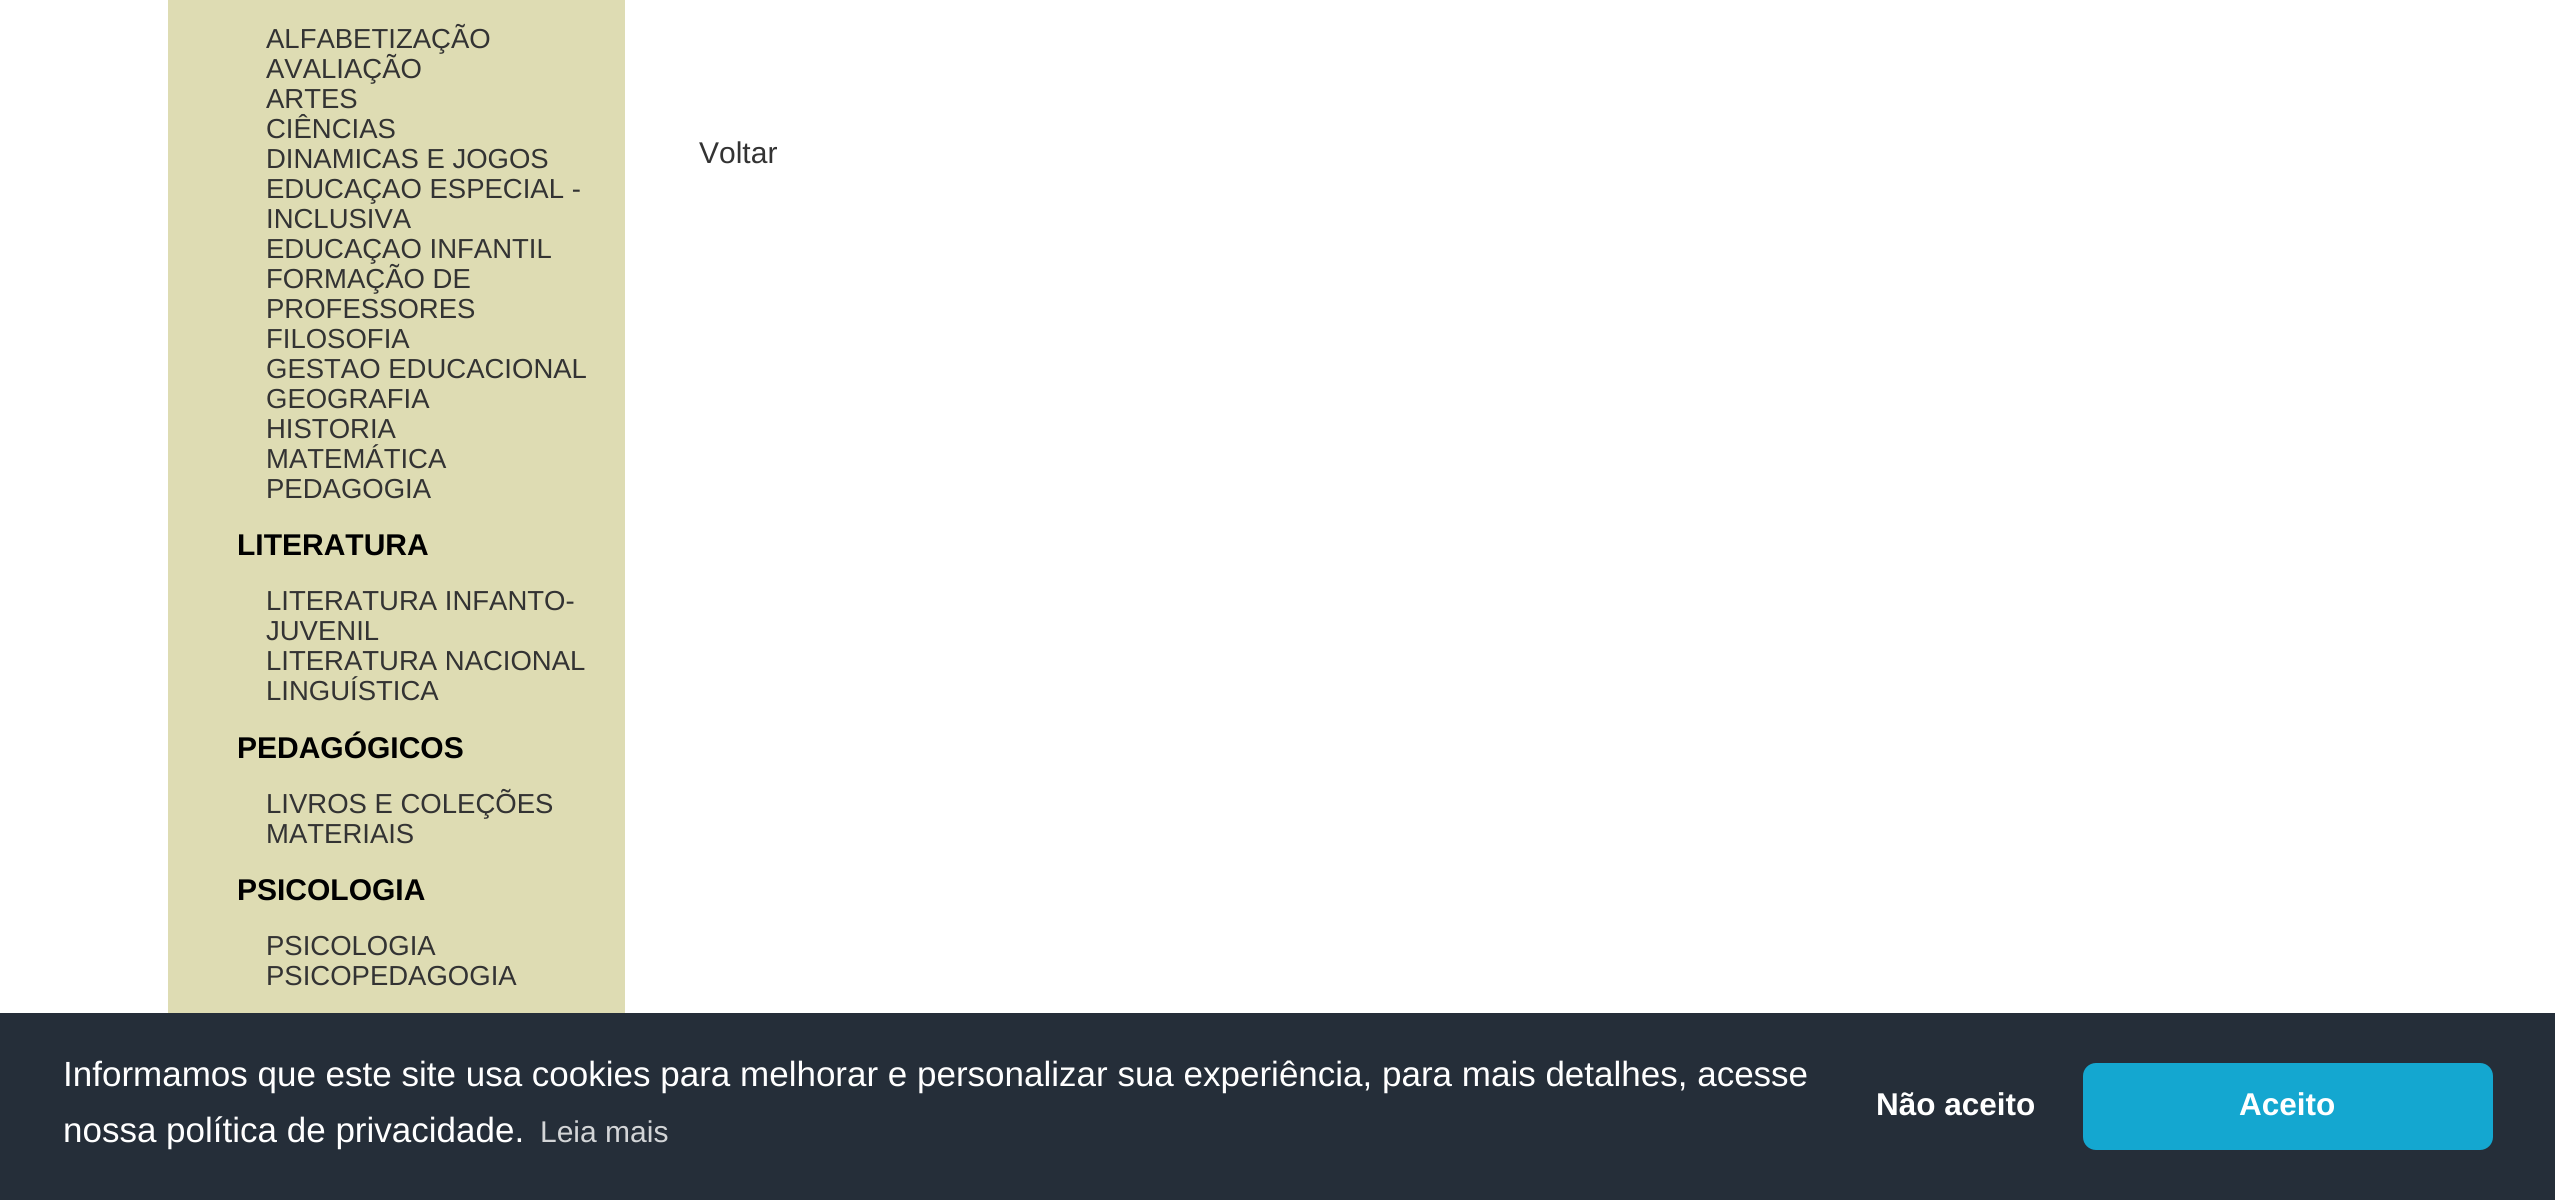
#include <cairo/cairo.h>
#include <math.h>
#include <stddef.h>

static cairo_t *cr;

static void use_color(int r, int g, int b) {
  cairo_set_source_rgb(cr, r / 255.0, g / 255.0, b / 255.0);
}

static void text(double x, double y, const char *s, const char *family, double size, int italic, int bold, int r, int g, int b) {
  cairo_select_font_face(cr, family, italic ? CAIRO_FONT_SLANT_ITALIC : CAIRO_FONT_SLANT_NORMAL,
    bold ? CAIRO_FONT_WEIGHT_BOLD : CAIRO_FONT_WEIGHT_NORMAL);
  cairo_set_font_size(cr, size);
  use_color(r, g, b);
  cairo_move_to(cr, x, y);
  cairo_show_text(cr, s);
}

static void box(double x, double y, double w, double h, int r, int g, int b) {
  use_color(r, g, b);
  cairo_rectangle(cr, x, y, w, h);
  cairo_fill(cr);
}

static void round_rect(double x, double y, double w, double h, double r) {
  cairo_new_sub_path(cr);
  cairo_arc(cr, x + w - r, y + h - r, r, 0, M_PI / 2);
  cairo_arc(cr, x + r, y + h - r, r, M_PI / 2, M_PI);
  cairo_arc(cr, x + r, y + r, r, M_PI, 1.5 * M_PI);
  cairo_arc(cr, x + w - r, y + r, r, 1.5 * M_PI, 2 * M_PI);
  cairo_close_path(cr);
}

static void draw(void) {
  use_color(255, 255, 255);
  cairo_paint(cr);
  box(168, 0, 457, 1013, 222, 220, 179);
  box(0, 1013, 2555, 187, 37, 46, 57);
  use_color(20, 167, 208);
  round_rect(2083, 1063, 410, 87, 13);
  cairo_fill(cr);
  text(266, 48, "ALFABETIZAÇÃO", "Liberation Sans", 27.5, 0, 0, 51, 51, 51);
  text(266, 78, "AVALIAÇÃO", "Liberation Sans", 27.5, 0, 0, 51, 51, 51);
  text(266, 108, "ARTES", "Liberation Sans", 27.5, 0, 0, 51, 51, 51);
  text(266, 138, "CIÊNCIAS", "Liberation Sans", 27.5, 0, 0, 51, 51, 51);
  text(266, 168, "DINAMICAS E JOGOS", "Liberation Sans", 27.5, 0, 0, 51, 51, 51);
  text(266, 198, "EDUCAÇAO ESPECIAL -", "Liberation Sans", 27.5, 0, 0, 51, 51, 51);
  text(266, 228, "INCLUSIVA", "Liberation Sans", 27.5, 0, 0, 51, 51, 51);
  text(266, 258, "EDUCAÇAO INFANTIL", "Liberation Sans", 27.5, 0, 0, 51, 51, 51);
  text(266, 288, "FORMAÇÃO DE", "Liberation Sans", 27.5, 0, 0, 51, 51, 51);
  text(266, 318, "PROFESSORES", "Liberation Sans", 27.5, 0, 0, 51, 51, 51);
  text(266, 348, "FILOSOFIA", "Liberation Sans", 27.5, 0, 0, 51, 51, 51);
  text(266, 378, "GESTAO EDUCACIONAL", "Liberation Sans", 27.5, 0, 0, 51, 51, 51);
  text(266, 408, "GEOGRAFIA", "Liberation Sans", 27.5, 0, 0, 51, 51, 51);
  text(266, 438, "HISTORIA", "Liberation Sans", 27.5, 0, 0, 51, 51, 51);
  text(266, 468, "MATEMÁTICA", "Liberation Sans", 27.5, 0, 0, 51, 51, 51);
  text(266, 498, "PEDAGOGIA", "Liberation Sans", 27.5, 0, 0, 51, 51, 51);
  text(237, 555, "LITERATURA", "Liberation Sans", 30, 0, 1, 0, 0, 0);
  text(266, 610, "LITERATURA INFANTO-", "Liberation Sans", 27.5, 0, 0, 51, 51, 51);
  text(266, 640, "JUVENIL", "Liberation Sans", 27.5, 0, 0, 51, 51, 51);
  text(266, 670, "LITERATURA NACIONAL", "Liberation Sans", 27.5, 0, 0, 51, 51, 51);
  text(266, 700, "LINGUÍSTICA", "Liberation Sans", 27.5, 0, 0, 51, 51, 51);
  text(237, 758, "PEDAGÓGICOS", "Liberation Sans", 30, 0, 1, 0, 0, 0);
  text(266, 813, "LIVROS E COLEÇÕES", "Liberation Sans", 27.5, 0, 0, 51, 51, 51);
  text(266, 843, "MATERIAIS", "Liberation Sans", 27.5, 0, 0, 51, 51, 51);
  text(237, 900, "PSICOLOGIA", "Liberation Sans", 30, 0, 1, 0, 0, 0);
  text(266, 955, "PSICOLOGIA", "Liberation Sans", 27.5, 0, 0, 51, 51, 51);
  text(266, 985, "PSICOPEDAGOGIA", "Liberation Sans", 27.5, 0, 0, 51, 51, 51);
  text(699, 163, "Voltar", "Liberation Sans", 30, 0, 0, 51, 51, 51);
  text(63, 1086, "Informamos que este site usa cookies para melhorar e personalizar sua experiência, para mais detalhes, acesse", "Liberation Sans", 35, 0, 0, 255, 255, 255);
  text(63, 1142, "nossa política de privacidade.", "Liberation Sans", 35, 0, 0, 255, 255, 255);
  text(540, 1142, "Leia mais", "Liberation Sans", 30, 0, 0, 211, 213, 215);
  text(1876, 1115, "Não aceito", "Liberation Sans", 31.5, 0, 1, 255, 255, 255);
  text(2239, 1115, "Aceito", "Liberation Sans", 31.5, 0, 1, 255, 255, 255);
}

int main(void) {
  cairo_surface_t *surface = cairo_image_surface_create(CAIRO_FORMAT_RGB24, 2555, 1200);
  cr = cairo_create(surface);
  cairo_font_options_t *options = cairo_font_options_create();
  cairo_font_options_set_hint_metrics(options, CAIRO_HINT_METRICS_OFF);
  cairo_font_options_set_hint_style(options, CAIRO_HINT_STYLE_NONE);
  cairo_set_font_options(cr, options);
  cairo_set_miter_limit(cr, 4);
  draw();
  cairo_surface_write_to_png(surface, "out.png");
  cairo_font_options_destroy(options);
  cairo_destroy(cr);
  cairo_surface_destroy(surface);
  return 0;
}
